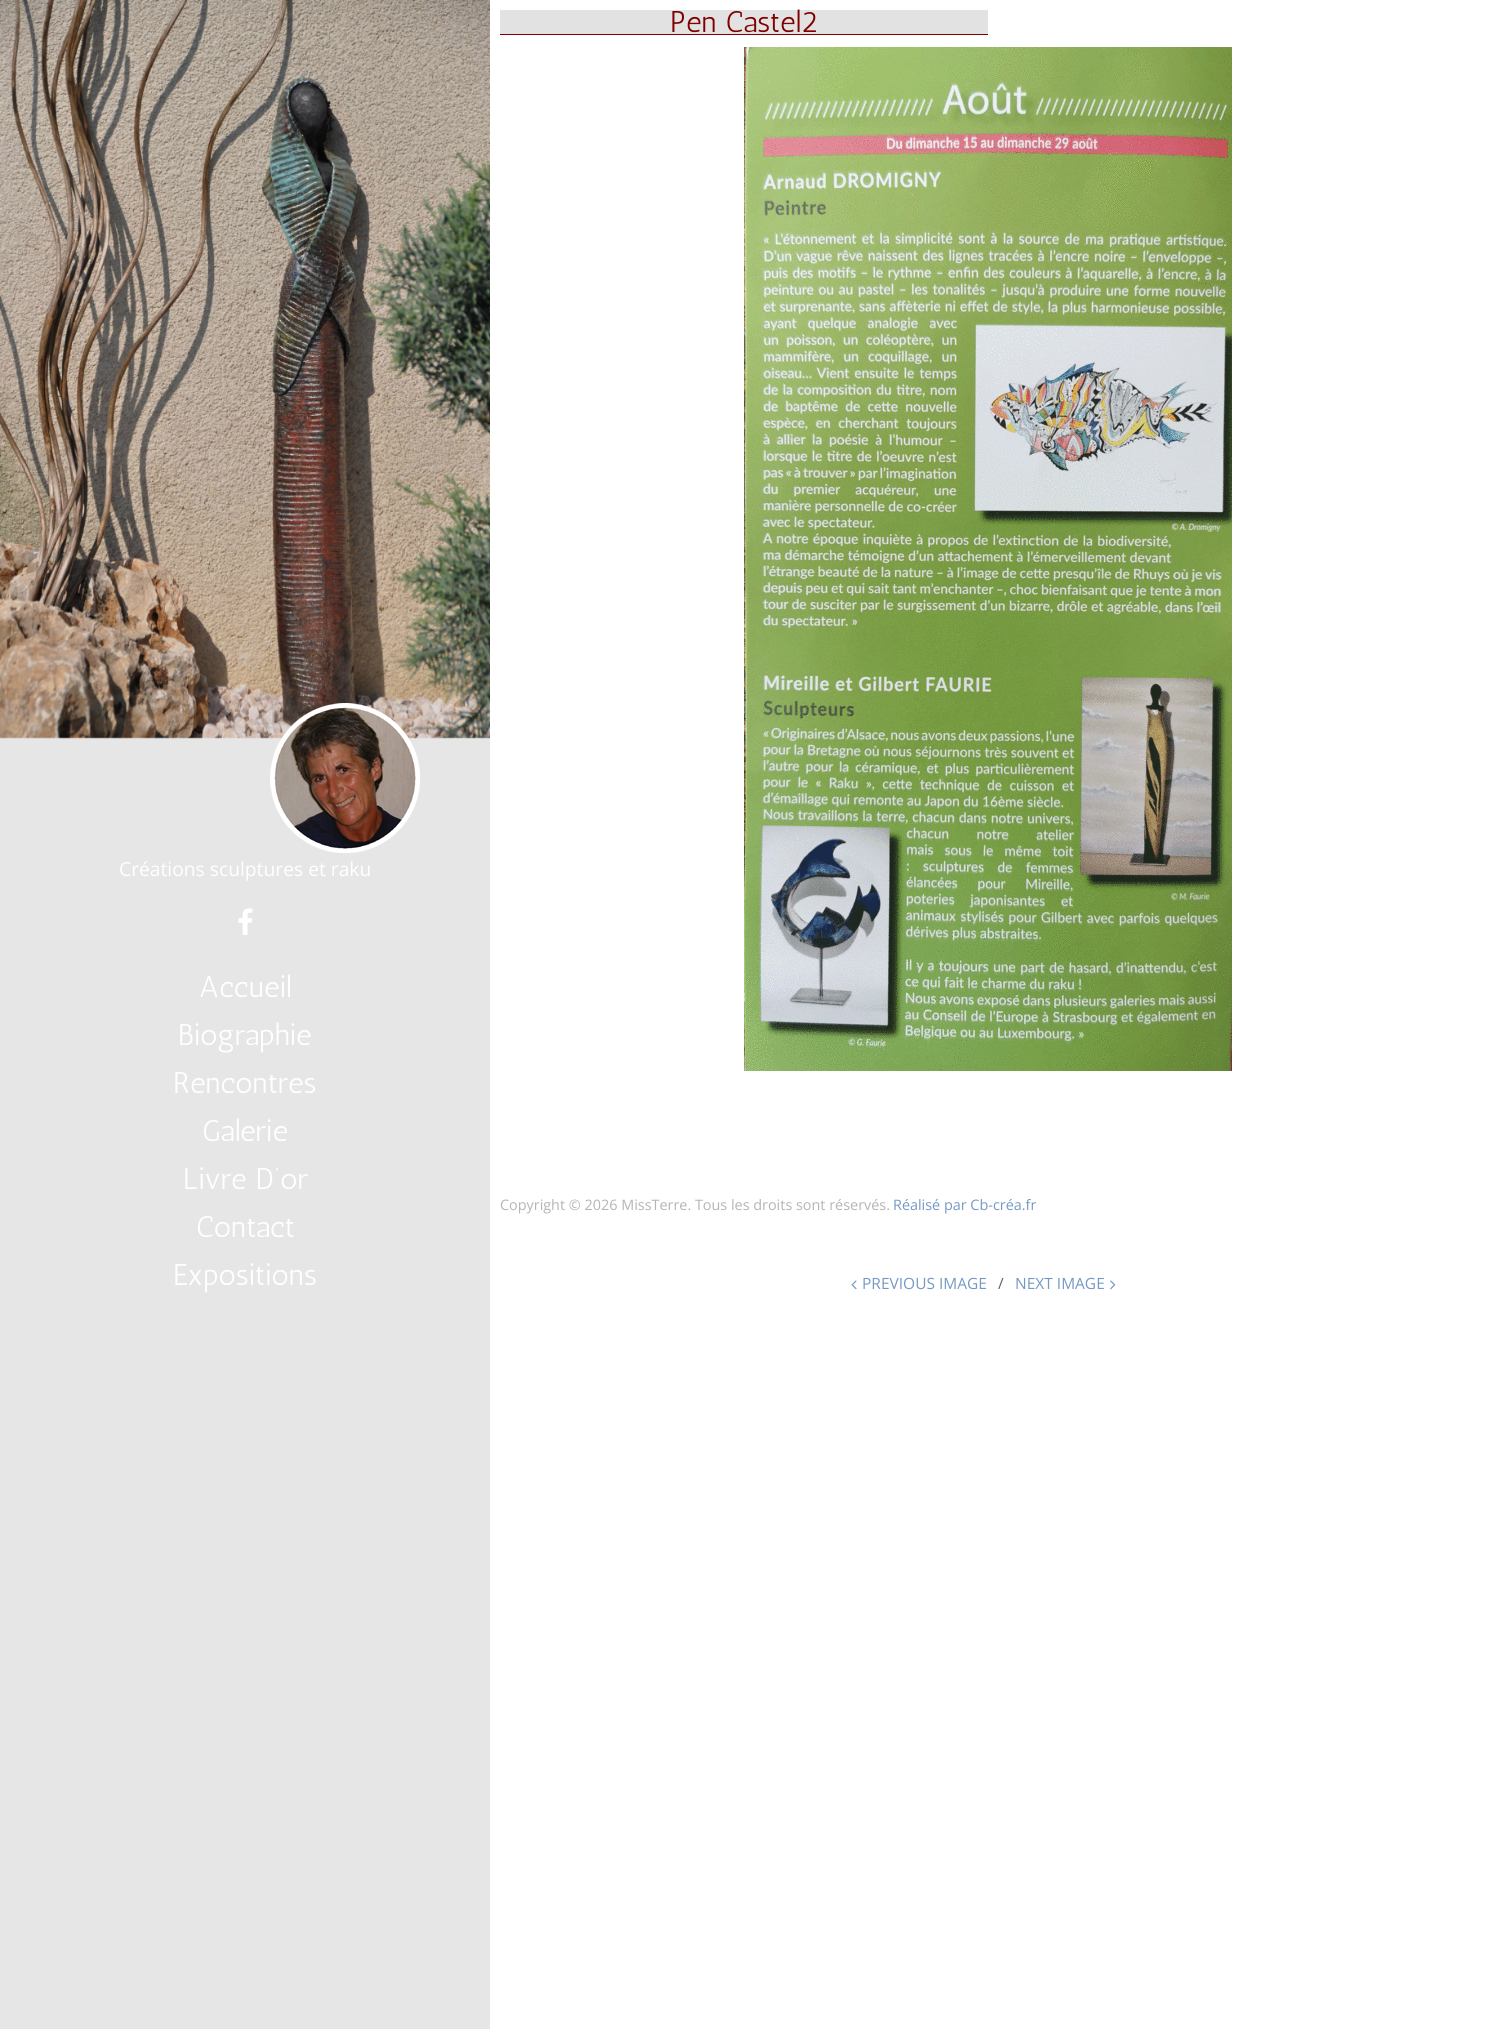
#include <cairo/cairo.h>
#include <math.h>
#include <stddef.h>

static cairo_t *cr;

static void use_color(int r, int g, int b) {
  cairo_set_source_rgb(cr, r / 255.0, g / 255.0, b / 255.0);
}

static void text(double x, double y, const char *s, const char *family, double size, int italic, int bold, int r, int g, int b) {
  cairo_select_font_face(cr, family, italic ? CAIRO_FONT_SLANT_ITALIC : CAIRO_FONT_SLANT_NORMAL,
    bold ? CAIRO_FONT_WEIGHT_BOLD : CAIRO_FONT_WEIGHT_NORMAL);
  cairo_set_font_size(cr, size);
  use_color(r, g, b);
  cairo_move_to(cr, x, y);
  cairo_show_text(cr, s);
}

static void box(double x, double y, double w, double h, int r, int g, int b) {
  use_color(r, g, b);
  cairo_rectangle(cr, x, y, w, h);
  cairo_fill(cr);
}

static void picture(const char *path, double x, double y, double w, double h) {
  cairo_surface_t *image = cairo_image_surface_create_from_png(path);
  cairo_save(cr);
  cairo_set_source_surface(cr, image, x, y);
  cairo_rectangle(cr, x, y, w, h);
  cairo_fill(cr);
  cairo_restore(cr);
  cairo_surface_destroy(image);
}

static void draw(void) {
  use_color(255, 255, 255);
  cairo_paint(cr);
  box(0, 737, 490, 1292, 230, 230, 230);
  picture("img_01.png", 0, 0, 490, 739);
  picture("img_02.png", 270, 703, 150, 150);
  picture("img_03.png", 238, 908, 15, 27);
  box(500, 10, 488, 24, 226, 226, 226);
  box(500, 34, 488, 1, 128, 0, 0);
  picture("img_04.png", 744, 47, 488, 1024);
  picture("img_05.png", 851, 1280, 6, 10);
  picture("img_06.png", 1110, 1280, 6, 10);
  text(119, 876, "Créations sculptures et raku", "Open Sans", 19.25, 0, 0, 255, 255, 255);
  text(199, 997, "Accueil", "Antic", 30, 0, 0, 255, 255, 255);
  text(178, 1045, "Biographie", "Antic", 30, 0, 0, 255, 255, 255);
  text(173, 1093, "Rencontres", "Antic", 30, 0, 0, 255, 255, 255);
  text(202, 1141, "Galerie", "Antic", 30, 0, 0, 255, 255, 255);
  text(183, 1189, "Livre D’or", "Antic", 30, 0, 0, 255, 255, 255);
  text(196, 1237, "Contact", "Antic", 30, 0, 0, 255, 255, 255);
  text(173, 1285, "Expositions", "Antic", 30, 0, 0, 255, 255, 255);
  text(670, 32, "Pen Castel2", "Antic", 30, 0, 0, 128, 0, 0);
  text(862, 1289, "PREVIOUS IMAGE", "Open Sans", 15.5, 0, 0, 117, 153, 197);
  text(998, 1289, "∕", "Open Sans", 15.5, 0, 0, 97, 97, 97);
  text(1015, 1289, "NEXT IMAGE", "Open Sans", 15.5, 0, 0, 117, 153, 197);
  text(500, 1210, "Copyright © 2026 MissTerre. Tous les droits sont réservés.", "Open Sans", 14.4, 0, 0, 181, 181, 181);
  text(893, 1210, "Réalisé par Cb-créa.fr", "Open Sans", 14.4, 0, 0, 117, 153, 197);
}

int main(void) {
  cairo_surface_t *surface = cairo_image_surface_create(CAIRO_FORMAT_RGB24, 1485, 2029);
  cr = cairo_create(surface);
  cairo_font_options_t *options = cairo_font_options_create();
  cairo_font_options_set_hint_metrics(options, CAIRO_HINT_METRICS_OFF);
  cairo_font_options_set_hint_style(options, CAIRO_HINT_STYLE_NONE);
  cairo_set_font_options(cr, options);
  cairo_set_miter_limit(cr, 4);
  draw();
  cairo_surface_write_to_png(surface, "out.png");
  cairo_font_options_destroy(options);
  cairo_destroy(cr);
  cairo_surface_destroy(surface);
  return 0;
}
